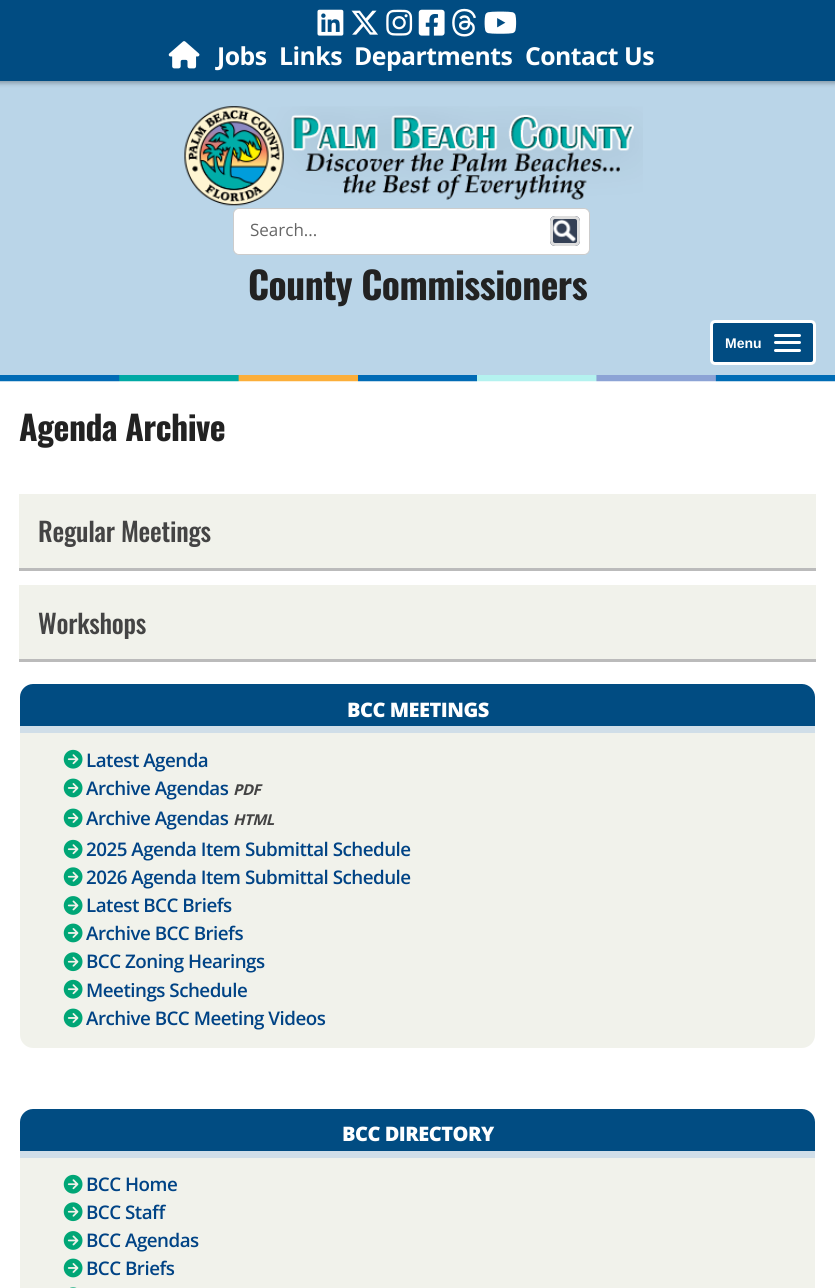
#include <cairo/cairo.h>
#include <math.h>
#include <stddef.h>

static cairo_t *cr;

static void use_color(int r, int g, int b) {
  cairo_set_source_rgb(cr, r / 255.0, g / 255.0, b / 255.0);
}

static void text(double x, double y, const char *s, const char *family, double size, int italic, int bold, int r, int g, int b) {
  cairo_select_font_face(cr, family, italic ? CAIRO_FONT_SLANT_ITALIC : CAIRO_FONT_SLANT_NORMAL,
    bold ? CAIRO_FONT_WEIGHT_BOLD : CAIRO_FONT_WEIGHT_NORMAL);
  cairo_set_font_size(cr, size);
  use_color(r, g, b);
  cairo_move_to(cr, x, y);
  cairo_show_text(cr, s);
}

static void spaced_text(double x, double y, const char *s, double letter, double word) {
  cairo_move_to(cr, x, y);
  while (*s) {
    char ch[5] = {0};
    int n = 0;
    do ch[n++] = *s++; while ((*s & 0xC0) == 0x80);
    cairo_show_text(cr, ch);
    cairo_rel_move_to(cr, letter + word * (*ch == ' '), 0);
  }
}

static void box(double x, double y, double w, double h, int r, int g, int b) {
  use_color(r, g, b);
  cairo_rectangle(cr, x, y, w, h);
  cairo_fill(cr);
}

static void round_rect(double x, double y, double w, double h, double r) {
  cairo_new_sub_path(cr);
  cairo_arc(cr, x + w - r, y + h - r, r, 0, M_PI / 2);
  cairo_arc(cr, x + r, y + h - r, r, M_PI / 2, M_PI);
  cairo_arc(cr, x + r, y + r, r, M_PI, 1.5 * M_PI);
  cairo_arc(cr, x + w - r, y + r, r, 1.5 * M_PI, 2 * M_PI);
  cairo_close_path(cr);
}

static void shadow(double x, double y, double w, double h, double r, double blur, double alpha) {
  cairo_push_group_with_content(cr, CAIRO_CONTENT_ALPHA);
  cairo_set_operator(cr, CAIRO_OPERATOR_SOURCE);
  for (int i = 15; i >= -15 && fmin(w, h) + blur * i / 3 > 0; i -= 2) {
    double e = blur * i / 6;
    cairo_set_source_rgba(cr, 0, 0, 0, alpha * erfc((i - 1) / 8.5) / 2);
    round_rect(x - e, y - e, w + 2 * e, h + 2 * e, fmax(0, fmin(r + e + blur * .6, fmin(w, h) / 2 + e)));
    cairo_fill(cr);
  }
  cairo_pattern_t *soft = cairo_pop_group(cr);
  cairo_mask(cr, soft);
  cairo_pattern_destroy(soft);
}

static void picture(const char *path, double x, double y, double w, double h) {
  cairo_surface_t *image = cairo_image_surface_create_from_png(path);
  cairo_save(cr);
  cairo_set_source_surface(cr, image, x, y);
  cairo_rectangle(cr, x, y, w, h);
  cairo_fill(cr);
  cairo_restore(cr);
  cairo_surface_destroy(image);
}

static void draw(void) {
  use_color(186, 213, 232);
  cairo_paint(cr);
  use_color(0, 0, 0);
  shadow(-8, 1, 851, 82, 0, 2.5, 0.3);
  box(0, 0, 835, 81, 1, 76, 130);
  picture("img_01.png", 317, 9, 27, 27);
  picture("img_02.png", 351, 10, 27, 25);
  picture("img_03.png", 386, 9, 27, 27);
  picture("img_04.png", 418, 9, 27, 27);
  picture("img_05.png", 452, 8, 24, 29);
  picture("img_06.png", 484, 11, 33, 23);
  picture("img_07.png", 168, 41, 32, 28);
  picture("img_08.png", 184, 106, 459, 100);
  use_color(255, 255, 255);
  round_rect(233.5, 208.5, 356, 46, 5.5);
  cairo_fill_preserve(cr);
  use_color(204, 204, 204);
  cairo_set_line_width(cr, 1);
  cairo_stroke(cr);
  use_color(52, 64, 85);
  round_rect(550, 216, 30, 30, 5);
  cairo_fill(cr);
  picture("img_09.png", 553, 219, 23, 23);
  round_rect(551.5, 217.5, 27, 27, 3.5);
  use_color(221, 221, 221);
  cairo_set_line_width(cr, 3);
  cairo_stroke(cr);
  use_color(1, 76, 130);
  round_rect(711.5, 321.5, 103, 42, 3.5);
  cairo_fill_preserve(cr);
  use_color(255, 255, 255);
  cairo_stroke(cr);
  round_rect(774, 334, 27, 3, 1.5);
  cairo_fill(cr);
  round_rect(774, 341, 27, 3, 1.5);
  cairo_fill(cr);
  round_rect(774, 349, 27, 3, 1.5);
  cairo_fill(cr);
  box(0, 381, 835, 907, 255, 255, 255);
  picture("img_10.png", 0, 375, 835, 7);
  box(19, 494, 797, 74, 241, 242, 235);
  box(19, 568, 797, 3, 187, 187, 187);
  box(19, 585, 797, 74, 241, 242, 235);
  box(19, 659, 797, 3, 187, 187, 187);
  use_color(1, 76, 130);
  cairo_new_path(cr);
  cairo_move_to(cr, 33, 684);
  cairo_line_to(cr, 802, 684);
  cairo_curve_to(cr, 809, 684, 815, 690, 815, 697);
  cairo_line_to(cr, 815, 733);
  cairo_line_to(cr, 20, 733);
  cairo_line_to(cr, 20, 697);
  cairo_curve_to(cr, 20, 690, 26, 684, 33, 684);
  cairo_close_path(cr);
  cairo_fill(cr);
  box(20, 726, 795, 7, 208, 222, 232);
  use_color(241, 242, 235);
  cairo_new_path(cr);
  cairo_move_to(cr, 20, 733);
  cairo_line_to(cr, 815, 733);
  cairo_line_to(cr, 815, 1035);
  cairo_curve_to(cr, 815, 1042, 809, 1048, 802, 1048);
  cairo_line_to(cr, 33, 1048);
  cairo_curve_to(cr, 26, 1048, 20, 1042, 20, 1035);
  cairo_close_path(cr);
  cairo_fill(cr);
  picture("img_11.png", 63, 749, 20, 20);
  picture("img_12.png", 63, 778, 20, 20);
  picture("img_12.png", 63, 808, 20, 20);
  picture("img_11.png", 63, 839, 20, 20);
  picture("img_13.png", 63, 867, 20, 20);
  picture("img_14.png", 63, 896, 20, 19);
  picture("img_12.png", 63, 923, 20, 20);
  picture("img_13.png", 63, 952, 20, 20);
  picture("img_11.png", 63, 979, 20, 20);
  picture("img_12.png", 63, 1008, 20, 20);
  use_color(1, 76, 130);
  cairo_new_path(cr);
  cairo_move_to(cr, 33, 1109);
  cairo_line_to(cr, 802, 1109);
  cairo_curve_to(cr, 809, 1109, 815, 1115, 815, 1122);
  cairo_line_to(cr, 815, 1158);
  cairo_line_to(cr, 20, 1158);
  cairo_line_to(cr, 20, 1122);
  cairo_curve_to(cr, 20, 1115, 26, 1109, 33, 1109);
  cairo_close_path(cr);
  cairo_fill(cr);
  box(20, 1151, 795, 7, 208, 222, 232);
  box(20, 1158, 795, 130, 241, 242, 235);
  picture("img_11.png", 63, 1174, 20, 20);
  picture("img_13.png", 63, 1202, 20, 20);
  picture("img_14.png", 63, 1231, 20, 19);
  picture("img_12.png", 63, 1258, 20, 20);
  picture("img_15.png", 70, 1287, 7, 1);
  cairo_select_font_face(cr, "Open Sans", CAIRO_FONT_SLANT_NORMAL, CAIRO_FONT_WEIGHT_BOLD);
  cairo_set_font_size(cr, 24.75);
  use_color(255, 255, 255);
  spaced_text(217, 65, "Jobs", -0.5, 0);
  spaced_text(279, 65, "Links", -0.5, 0);
  spaced_text(354, 65, "Departments", -0.5, 0);
  spaced_text(525, 65, "Contact Us", -0.5, 0);
  text(250, 236, "Search...", "Open Sans", 17, 0, 0, 102, 102, 102);
  cairo_select_font_face(cr, "Oswald", CAIRO_FONT_SLANT_NORMAL, CAIRO_FONT_WEIGHT_BOLD);
  cairo_set_font_size(cr, 37.5);
  use_color(34, 34, 34);
  spaced_text(248, 300, "County Commissioners", -0.5, 0);
  text(725, 348, "Menu", "Liberation Sans", 14, 0, 1, 255, 255, 255);
  cairo_select_font_face(cr, "Oswald", CAIRO_FONT_SLANT_NORMAL, CAIRO_FONT_WEIGHT_BOLD);
  cairo_set_font_size(cr, 33.75);
  use_color(34, 34, 34);
  spaced_text(19, 441, "Agenda Archive", -0.5, 0);
  cairo_select_font_face(cr, "Oswald Medium", CAIRO_FONT_SLANT_NORMAL, CAIRO_FONT_WEIGHT_NORMAL);
  cairo_set_font_size(cr, 26.25);
  use_color(68, 68, 68);
  spaced_text(38, 542, "Regular Meetings", -0.25, 0);
  spaced_text(38, 634, "Workshops", -0.25, 0);
  cairo_select_font_face(cr, "Open Sans ExtraBold", CAIRO_FONT_SLANT_NORMAL, CAIRO_FONT_WEIGHT_NORMAL);
  cairo_set_font_size(cr, 20);
  use_color(255, 255, 255);
  spaced_text(347, 717, "BCC MEETINGS", -0.5, 0);
  cairo_select_font_face(cr, "Open Sans SemiBold", CAIRO_FONT_SLANT_NORMAL, CAIRO_FONT_WEIGHT_NORMAL);
  cairo_set_font_size(cr, 18.75);
  use_color(0, 67, 133);
  spaced_text(86, 767, "Latest Agenda", -0.5, 0);
  spaced_text(86, 795, "Archive Agendas", -0.5, 0);
  cairo_select_font_face(cr, "Open Sans", CAIRO_FONT_SLANT_ITALIC, CAIRO_FONT_WEIGHT_BOLD);
  cairo_set_font_size(cr, 15);
  use_color(68, 68, 68);
  spaced_text(233, 795, "PDF", -0.5, 0);
  cairo_select_font_face(cr, "Open Sans SemiBold", CAIRO_FONT_SLANT_NORMAL, CAIRO_FONT_WEIGHT_NORMAL);
  cairo_set_font_size(cr, 18.75);
  use_color(0, 67, 133);
  spaced_text(86, 825, "Archive Agendas", -0.5, 0);
  cairo_select_font_face(cr, "Open Sans", CAIRO_FONT_SLANT_ITALIC, CAIRO_FONT_WEIGHT_BOLD);
  cairo_set_font_size(cr, 15);
  use_color(68, 68, 68);
  spaced_text(233, 825, "HTML", -0.5, 0);
  cairo_select_font_face(cr, "Open Sans SemiBold", CAIRO_FONT_SLANT_NORMAL, CAIRO_FONT_WEIGHT_NORMAL);
  cairo_set_font_size(cr, 18.75);
  use_color(0, 67, 133);
  spaced_text(86, 856, "2025 Agenda Item Submittal Schedule", -0.5, 0);
  spaced_text(86, 884, "2026 Agenda Item Submittal Schedule", -0.5, 0);
  spaced_text(86, 912, "Latest BCC Briefs", -0.5, 0);
  spaced_text(86, 940, "Archive BCC Briefs", -0.5, 0);
  spaced_text(86, 968, "BCC Zoning Hearings", -0.5, 0);
  spaced_text(86, 997, "Meetings Schedule", -0.5, 0);
  spaced_text(86, 1025, "Archive BCC Meeting Videos", -0.5, 0);
  cairo_select_font_face(cr, "Open Sans ExtraBold", CAIRO_FONT_SLANT_NORMAL, CAIRO_FONT_WEIGHT_NORMAL);
  cairo_set_font_size(cr, 20);
  use_color(255, 255, 255);
  spaced_text(342, 1141, "BCC DIRECTORY", -0.5, 0);
  cairo_select_font_face(cr, "Open Sans SemiBold", CAIRO_FONT_SLANT_NORMAL, CAIRO_FONT_WEIGHT_NORMAL);
  cairo_set_font_size(cr, 18.75);
  use_color(0, 67, 133);
  spaced_text(86, 1191, "BCC Home", -0.5, 0);
  spaced_text(86, 1219, "BCC Staff", -0.5, 0);
  spaced_text(86, 1247, "BCC Agendas", -0.5, 0);
  spaced_text(86, 1275, "BCC Briefs", -0.5, 0);
}

int main(void) {
  cairo_surface_t *surface = cairo_image_surface_create(CAIRO_FORMAT_RGB24, 835, 1288);
  cr = cairo_create(surface);
  cairo_font_options_t *options = cairo_font_options_create();
  cairo_font_options_set_hint_metrics(options, CAIRO_HINT_METRICS_OFF);
  cairo_font_options_set_hint_style(options, CAIRO_HINT_STYLE_NONE);
  cairo_set_font_options(cr, options);
  cairo_set_miter_limit(cr, 4);
  draw();
  cairo_surface_write_to_png(surface, "out.png");
  cairo_font_options_destroy(options);
  cairo_destroy(cr);
  cairo_surface_destroy(surface);
  return 0;
}
